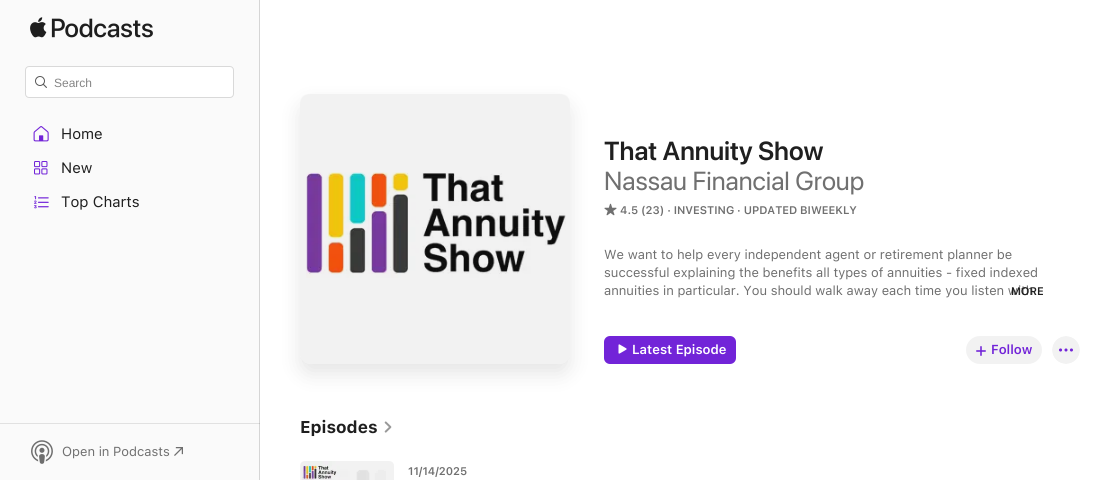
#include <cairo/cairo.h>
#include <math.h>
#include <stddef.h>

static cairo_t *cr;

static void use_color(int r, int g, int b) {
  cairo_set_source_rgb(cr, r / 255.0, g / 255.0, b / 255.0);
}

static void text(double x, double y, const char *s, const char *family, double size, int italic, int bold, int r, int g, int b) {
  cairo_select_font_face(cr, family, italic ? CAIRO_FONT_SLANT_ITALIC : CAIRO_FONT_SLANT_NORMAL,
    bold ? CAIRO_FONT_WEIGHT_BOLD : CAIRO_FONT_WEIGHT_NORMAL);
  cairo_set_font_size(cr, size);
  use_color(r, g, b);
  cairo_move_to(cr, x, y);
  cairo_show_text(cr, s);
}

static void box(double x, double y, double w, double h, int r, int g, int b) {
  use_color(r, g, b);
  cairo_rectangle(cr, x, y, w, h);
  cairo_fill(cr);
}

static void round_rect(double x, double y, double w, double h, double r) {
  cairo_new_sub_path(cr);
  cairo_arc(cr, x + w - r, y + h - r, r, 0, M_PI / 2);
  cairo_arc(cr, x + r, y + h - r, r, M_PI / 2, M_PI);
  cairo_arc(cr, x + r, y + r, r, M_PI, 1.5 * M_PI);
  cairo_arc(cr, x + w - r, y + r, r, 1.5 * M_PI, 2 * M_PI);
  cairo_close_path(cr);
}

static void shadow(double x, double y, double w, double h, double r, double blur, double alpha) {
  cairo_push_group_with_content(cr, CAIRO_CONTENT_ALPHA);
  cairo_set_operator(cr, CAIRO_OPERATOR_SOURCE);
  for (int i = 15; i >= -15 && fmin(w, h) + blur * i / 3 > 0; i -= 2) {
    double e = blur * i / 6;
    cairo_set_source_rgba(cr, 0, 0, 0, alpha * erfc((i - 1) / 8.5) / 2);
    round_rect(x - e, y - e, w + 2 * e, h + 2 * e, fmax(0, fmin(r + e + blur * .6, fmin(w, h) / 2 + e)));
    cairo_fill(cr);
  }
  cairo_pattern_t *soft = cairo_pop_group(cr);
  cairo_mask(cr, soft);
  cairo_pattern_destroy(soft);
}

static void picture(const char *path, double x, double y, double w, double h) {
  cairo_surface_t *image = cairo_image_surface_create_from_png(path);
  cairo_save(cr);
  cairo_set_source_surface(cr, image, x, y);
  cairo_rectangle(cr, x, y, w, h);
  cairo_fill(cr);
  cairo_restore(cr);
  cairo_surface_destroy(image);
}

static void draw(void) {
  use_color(255, 255, 255);
  cairo_paint(cr);
  box(0, 0, 259, 480, 250, 250, 250);
  box(0, 423, 260, 1, 225, 225, 225);
  box(259, 0, 1, 480, 213, 213, 213);
  box(259, 423, 1, 1, 192, 192, 192);
  picture("img_01.png", 30, 17, 123, 21);
  use_color(255, 255, 255);
  round_rect(25.5, 66.5, 208, 31, 3.5);
  cairo_fill_preserve(cr);
  use_color(217, 217, 217);
  cairo_set_line_width(cr, 1);
  cairo_stroke(cr);
  picture("img_02.png", 35, 76, 12, 12);
  picture("img_03.png", 33, 126, 16, 16);
  picture("img_04.png", 34, 161, 14, 14);
  picture("img_05.png", 34, 196, 15, 13);
  picture("img_06.png", 31, 440, 22, 24);
  picture("img_07.png", 174, 447, 9, 9);
  cairo_save(cr);
  cairo_set_fill_rule(cr, CAIRO_FILL_RULE_EVEN_ODD);
  cairo_new_path(cr);
  cairo_move_to(cr, 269, 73);
  cairo_line_to(cr, 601, 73);
  cairo_line_to(cr, 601, 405);
  cairo_line_to(cr, 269, 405);
  cairo_close_path(cr);
  cairo_move_to(cr, 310, 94);
  cairo_line_to(cr, 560, 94);
  cairo_curve_to(cr, 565.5, 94, 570, 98.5, 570, 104);
  cairo_line_to(cr, 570, 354);
  cairo_curve_to(cr, 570, 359.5, 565.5, 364, 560, 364);
  cairo_line_to(cr, 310, 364);
  cairo_curve_to(cr, 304.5, 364, 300, 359.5, 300, 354);
  cairo_line_to(cr, 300, 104);
  cairo_curve_to(cr, 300, 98.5, 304.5, 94, 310, 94);
  cairo_close_path(cr);
  cairo_clip(cr);
  use_color(0, 0, 0);
  shadow(300, 104, 270, 270, 10, 10, 0.1);
  cairo_restore(cr);
  picture("img_08.png", 306, 172, 260, 106);
  cairo_set_source_rgba(cr, 0.502, 0.502, 0.502, 0.1);
  cairo_new_path(cr);
  cairo_move_to(cr, 310, 94);
  cairo_line_to(cr, 560, 94);
  cairo_curve_to(cr, 566, 94, 570, 98, 570, 104);
  cairo_line_to(cr, 570, 354);
  cairo_curve_to(cr, 570, 360, 566, 364, 560, 364);
  cairo_line_to(cr, 310, 364);
  cairo_curve_to(cr, 304, 364, 300, 360, 300, 354);
  cairo_line_to(cr, 300, 104);
  cairo_curve_to(cr, 300, 98, 304, 94, 310, 94);
  cairo_close_path(cr);
  cairo_fill(cr);
  picture("img_09.png", 604, 203, 13, 13);
  use_color(114, 36, 216);
  round_rect(604, 336, 132, 28, 6);
  cairo_fill(cr);
  picture("img_10.png", 618, 344, 9, 10);
  use_color(242, 242, 242);
  round_rect(966, 336, 76, 28, 14);
  cairo_fill(cr);
  picture("img_11.png", 976, 346, 10, 10);
  picture("img_12.png", 1052, 336, 28, 28);
  picture("img_13.png", 384, 421, 8, 12);
  picture("img_14.png", 301, 461, 85, 19);
  cairo_set_source_rgba(cr, 0.502, 0.502, 0.502, 0.1);
  cairo_new_path(cr);
  cairo_move_to(cr, 305, 461);
  cairo_line_to(cr, 389, 461);
  cairo_curve_to(cr, 392, 461, 394, 463, 394, 466);
  cairo_line_to(cr, 394, 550);
  cairo_curve_to(cr, 394, 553, 392, 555, 389, 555);
  cairo_line_to(cr, 305, 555);
  cairo_curve_to(cr, 302, 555, 300, 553, 300, 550);
  cairo_line_to(cr, 300, 466);
  cairo_curve_to(cr, 300, 463, 302, 461, 305, 461);
  cairo_close_path(cr);
  cairo_fill(cr);
  text(54, 87, "Search", "Liberation Sans", 12, 0, 0, 133, 133, 133);
  text(61, 139, "Home", "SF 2", 15, 0, 0, 31, 31, 31);
  text(61, 173, "New", "SF 2", 15, 0, 0, 31, 31, 31);
  text(61, 207, "Top Charts", "SF 2", 15, 0, 0, 31, 31, 31);
  text(62, 456, "Open in Podcasts", "SF 2", 13, 0, 0, 112, 112, 112);
  text(604, 160, "That Annuity Show", "SF 2 SemiBold", 26, 0, 0, 31, 31, 31);
  text(604, 190, "Nassau Financial Group", "SF", 26, 0, 0, 112, 112, 112);
  text(620, 214, "4.5 (23) · INVESTING · UPDATED BIWEEKLY", "SF SemiBold", 11, 0, 0, 112, 112, 112);
  text(604, 259, "We want to help every independent agent or retirement planner be", "SF 2", 13, 0, 0, 112, 112, 112);
  text(604, 277, "successful explaining the benefits all types of annuities - fixed indexed", "SF 2", 13, 0, 0, 112, 112, 112);
  text(604, 295, "annuities in particular. You should walk away each time you listen with", "SF 2", 13, 0, 0, 112, 112, 112);
  text(1011, 295, "MORE", "SF SemiBold", 11, 0, 0, 31, 31, 31);
  text(632, 354, "Latest Episode", "SF SemiBold", 13, 0, 0, 255, 255, 255);
  text(991, 354, "Follow", "SF SemiBold", 13, 0, 0, 114, 36, 216);
  text(300, 433, "Episodes", "SF", 17, 0, 1, 31, 31, 31);
  text(408, 475, "11/14/2025", "SF SemiBold", 11, 0, 0, 112, 112, 112);
}

int main(void) {
  cairo_surface_t *surface = cairo_image_surface_create(CAIRO_FORMAT_RGB24, 1120, 480);
  cr = cairo_create(surface);
  cairo_font_options_t *options = cairo_font_options_create();
  cairo_font_options_set_hint_metrics(options, CAIRO_HINT_METRICS_OFF);
  cairo_font_options_set_hint_style(options, CAIRO_HINT_STYLE_NONE);
  cairo_set_font_options(cr, options);
  cairo_set_miter_limit(cr, 4);
  draw();
  cairo_surface_write_to_png(surface, "out.png");
  cairo_font_options_destroy(options);
  cairo_destroy(cr);
  cairo_surface_destroy(surface);
  return 0;
}
